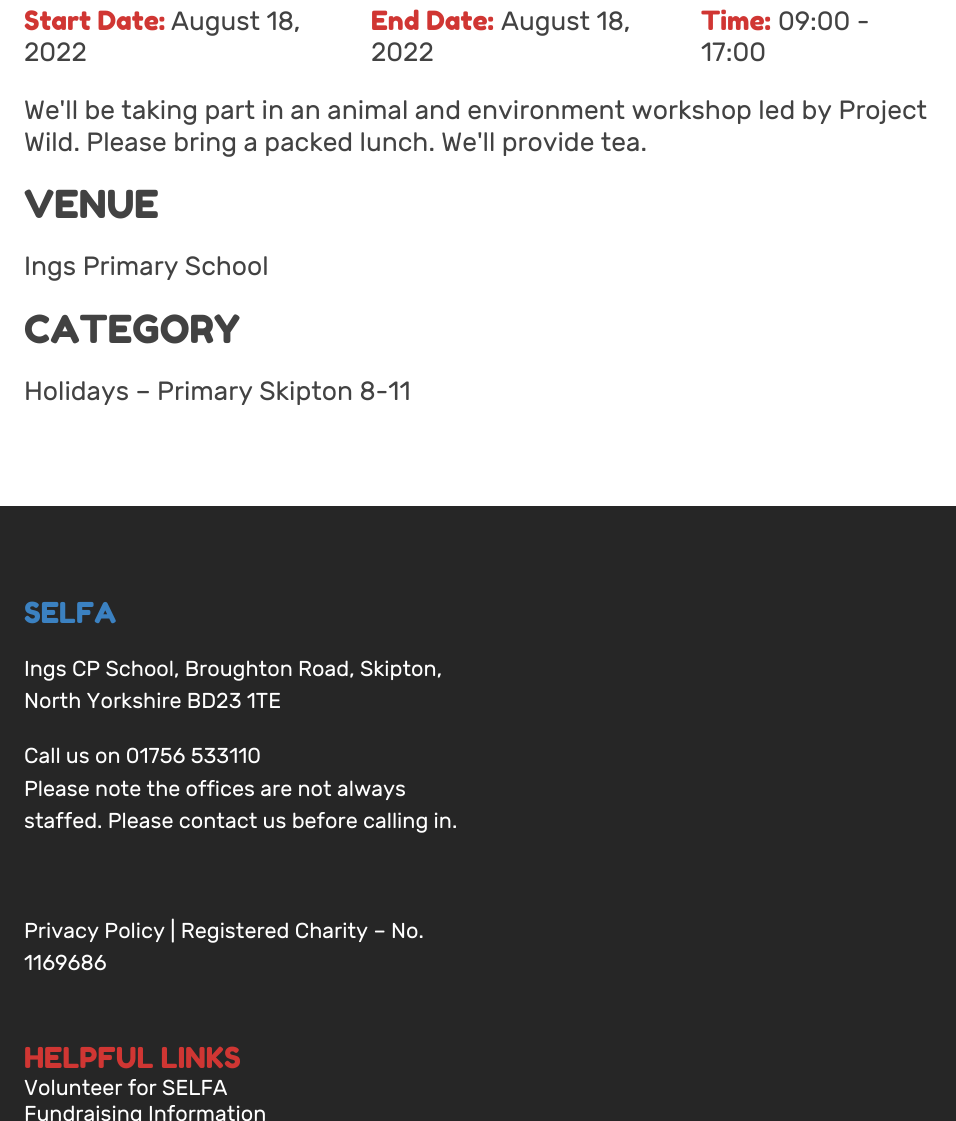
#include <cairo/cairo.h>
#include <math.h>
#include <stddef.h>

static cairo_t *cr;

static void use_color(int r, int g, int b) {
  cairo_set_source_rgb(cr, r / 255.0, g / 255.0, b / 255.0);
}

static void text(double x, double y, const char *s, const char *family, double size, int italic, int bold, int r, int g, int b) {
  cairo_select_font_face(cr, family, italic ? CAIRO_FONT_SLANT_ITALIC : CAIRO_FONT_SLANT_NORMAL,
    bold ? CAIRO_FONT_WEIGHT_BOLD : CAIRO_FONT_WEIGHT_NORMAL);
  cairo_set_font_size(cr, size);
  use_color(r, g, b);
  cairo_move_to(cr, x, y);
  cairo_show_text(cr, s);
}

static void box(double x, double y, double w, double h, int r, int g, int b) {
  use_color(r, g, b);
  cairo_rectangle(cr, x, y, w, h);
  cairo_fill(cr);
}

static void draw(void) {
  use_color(255, 255, 255);
  cairo_paint(cr);
  box(0, 506, 956, 615, 38, 38, 38);
  text(24, 30, "Start Date:", "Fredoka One", 26.4, 0, 0, 208, 54, 51);
  text(171, 30, "August 18,", "Rubik", 26.4, 0, 0, 66, 66, 66);
  text(24, 61, "2022", "Rubik", 26.4, 0, 0, 66, 66, 66);
  text(371, 30, "End Date:", "Fredoka One", 26.4, 0, 0, 208, 54, 51);
  text(501, 30, "August 18,", "Rubik", 26.4, 0, 0, 66, 66, 66);
  text(371, 61, "2022", "Rubik", 26.4, 0, 0, 66, 66, 66);
  text(701, 30, "Time:", "Fredoka One", 26.4, 0, 0, 208, 54, 51);
  text(778, 30, "09:00 -", "Rubik", 26.4, 0, 0, 66, 66, 66);
  text(701, 61, "17:00", "Rubik", 26.4, 0, 0, 66, 66, 66);
  text(24, 119, "We'll be taking part in an animal and environment workshop led by Project", "Rubik", 26.4, 0, 0, 66, 66, 66);
  text(24, 151, "Wild. Please bring a packed lunch. We'll provide tea.", "Rubik", 26.4, 0, 0, 66, 66, 66);
  text(24, 218, "VENUE", "Fredoka One", 38.5, 0, 0, 66, 66, 66);
  text(24, 275, "Ings Primary School", "Rubik", 26.4, 0, 0, 66, 66, 66);
  text(24, 343, "CATEGORY", "Fredoka One", 38.5, 0, 0, 66, 66, 66);
  text(24, 400, "Holidays – Primary Skipton 8-11", "Rubik", 26.4, 0, 0, 66, 66, 66);
  text(24, 623, "SELFA", "Fredoka One", 28.75, 0, 0, 59, 129, 193);
  text(24, 676, "Ings CP School, Broughton Road, Skipton,", "Rubik", 21.6, 0, 0, 255, 255, 255);
  text(24, 708, "North Yorkshire BD23 1TE", "Rubik", 21.6, 0, 0, 255, 255, 255);
  text(24, 763, "Call us on 01756 533110", "Rubik", 21.6, 0, 0, 255, 255, 255);
  text(24, 796, "Please note the offices are not always", "Rubik", 21.6, 0, 0, 255, 255, 255);
  text(24, 828, "staffed. Please contact us before calling in.", "Rubik", 21.6, 0, 0, 255, 255, 255);
  text(24, 938, "Privacy Policy | Registered Charity – No.", "Rubik", 21.6, 0, 0, 255, 255, 255);
  text(24, 970, "1169686", "Rubik", 21.6, 0, 0, 255, 255, 255);
  text(24, 1068, "HELPFUL LINKS", "Fredoka One", 28.75, 0, 0, 208, 54, 51);
  text(24, 1095, "Volunteer for SELFA", "Rubik", 21.6, 0, 0, 255, 255, 255);
  text(24, 1121, "Fundraising Information", "Rubik", 21.6, 0, 0, 255, 255, 255);
}

int main(void) {
  cairo_surface_t *surface = cairo_image_surface_create(CAIRO_FORMAT_RGB24, 956, 1121);
  cr = cairo_create(surface);
  cairo_font_options_t *options = cairo_font_options_create();
  cairo_font_options_set_hint_metrics(options, CAIRO_HINT_METRICS_OFF);
  cairo_font_options_set_hint_style(options, CAIRO_HINT_STYLE_NONE);
  cairo_set_font_options(cr, options);
  cairo_set_miter_limit(cr, 4);
  draw();
  cairo_surface_write_to_png(surface, "out.png");
  cairo_font_options_destroy(options);
  cairo_destroy(cr);
  cairo_surface_destroy(surface);
  return 0;
}
